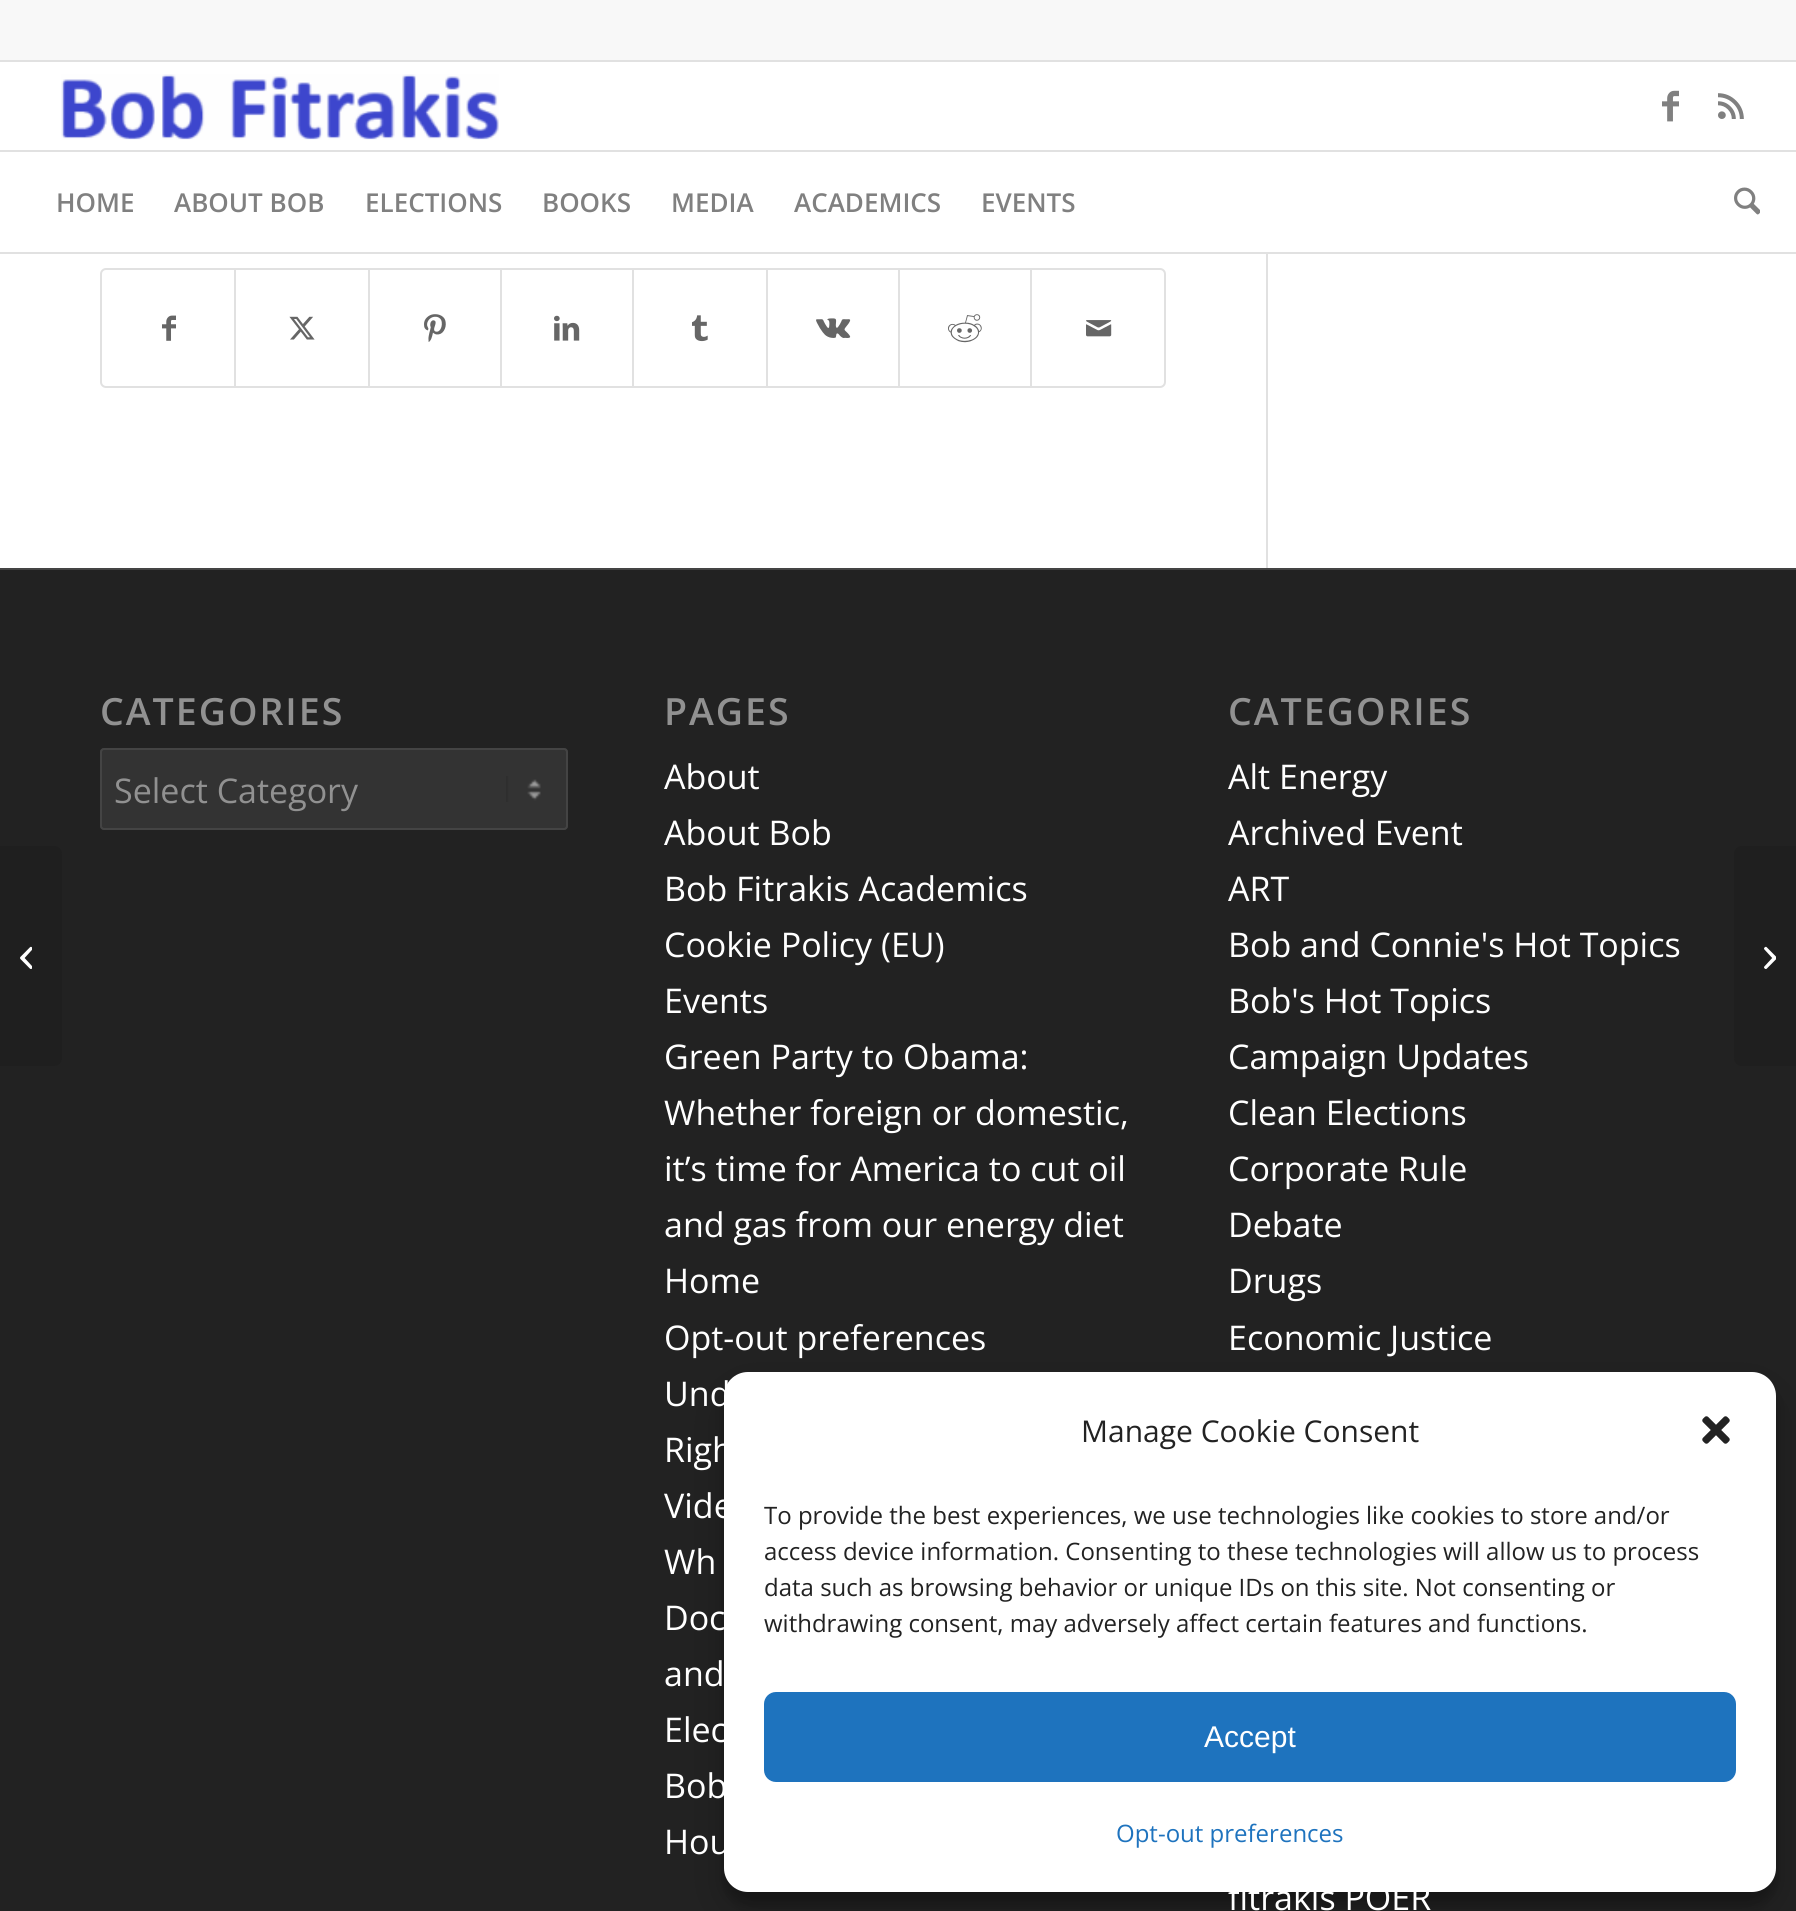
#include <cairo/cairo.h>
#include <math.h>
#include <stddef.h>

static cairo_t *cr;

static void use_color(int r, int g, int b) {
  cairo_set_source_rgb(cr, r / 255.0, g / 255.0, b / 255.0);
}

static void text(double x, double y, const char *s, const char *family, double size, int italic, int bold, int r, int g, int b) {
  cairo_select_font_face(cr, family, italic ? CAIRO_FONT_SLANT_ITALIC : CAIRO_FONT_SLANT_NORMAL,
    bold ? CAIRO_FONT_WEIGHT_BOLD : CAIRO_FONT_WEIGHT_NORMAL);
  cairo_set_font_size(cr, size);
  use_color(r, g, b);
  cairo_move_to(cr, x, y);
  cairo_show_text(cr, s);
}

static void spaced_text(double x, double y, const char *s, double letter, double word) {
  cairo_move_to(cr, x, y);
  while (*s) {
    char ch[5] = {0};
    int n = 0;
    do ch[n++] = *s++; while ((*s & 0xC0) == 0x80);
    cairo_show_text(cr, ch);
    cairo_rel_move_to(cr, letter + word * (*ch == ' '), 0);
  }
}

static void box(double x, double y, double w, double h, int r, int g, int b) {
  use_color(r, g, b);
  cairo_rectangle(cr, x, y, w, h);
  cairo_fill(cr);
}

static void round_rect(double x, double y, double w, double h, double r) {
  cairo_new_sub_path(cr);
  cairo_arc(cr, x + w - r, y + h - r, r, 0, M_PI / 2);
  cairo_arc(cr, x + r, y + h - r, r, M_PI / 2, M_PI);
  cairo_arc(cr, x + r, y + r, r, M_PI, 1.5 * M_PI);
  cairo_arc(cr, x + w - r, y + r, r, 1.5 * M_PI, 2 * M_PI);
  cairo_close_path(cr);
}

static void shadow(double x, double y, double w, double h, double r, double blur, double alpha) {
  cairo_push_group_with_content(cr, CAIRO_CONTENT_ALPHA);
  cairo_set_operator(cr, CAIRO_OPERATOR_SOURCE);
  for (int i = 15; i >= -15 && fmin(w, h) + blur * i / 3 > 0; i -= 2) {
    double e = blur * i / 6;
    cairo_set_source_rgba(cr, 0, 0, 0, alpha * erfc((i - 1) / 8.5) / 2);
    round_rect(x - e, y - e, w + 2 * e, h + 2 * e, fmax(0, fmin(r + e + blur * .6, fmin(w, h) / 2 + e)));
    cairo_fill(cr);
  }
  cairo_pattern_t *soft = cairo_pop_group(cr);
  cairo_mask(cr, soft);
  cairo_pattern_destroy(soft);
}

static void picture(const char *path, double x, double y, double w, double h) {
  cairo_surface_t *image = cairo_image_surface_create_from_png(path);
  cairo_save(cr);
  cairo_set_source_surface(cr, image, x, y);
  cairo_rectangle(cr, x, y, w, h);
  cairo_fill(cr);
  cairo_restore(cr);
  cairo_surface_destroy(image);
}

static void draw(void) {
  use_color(255, 255, 255);
  cairo_paint(cr);
  box(0, 0, 1796, 60, 248, 248, 248);
  box(0, 60, 1796, 2, 225, 225, 225);
  box(0, 252, 1796, 2, 225, 225, 225);
  picture("img_01.png", 61, 74, 438, 66);
  picture("img_02.png", 1662, 90, 17, 32);
  picture("img_03.png", 1718, 93, 26, 26);
  box(0, 150, 1796, 2, 225, 225, 225);
  picture("img_04.png", 1734, 187, 26, 28);
  box(0, 570, 1796, 1341, 34, 34, 34);
  use_color(31, 31, 31);
  cairo_new_path(cr);
  cairo_move_to(cr, 0, 846);
  cairo_line_to(cr, 54, 846);
  cairo_curve_to(cr, 58.5, 846, 62, 849.5, 62, 854);
  cairo_line_to(cr, 62, 1058);
  cairo_curve_to(cr, 62, 1062.5, 58.5, 1066, 54, 1066);
  cairo_line_to(cr, 0, 1066);
  cairo_close_path(cr);
  cairo_fill(cr);
  picture("img_05.png", 20, 946, 12, 23);
  box(1266, 254, 2, 314, 225, 225, 225);
  round_rect(101, 269, 1064, 118, 5);
  cairo_stroke(cr);
  picture("img_06.png", 162, 315, 14, 26);
  box(234, 270, 2, 116, 225, 225, 225);
  picture("img_07.png", 289, 316, 26, 24);
  box(368, 270, 2, 116, 225, 225, 225);
  picture("img_08.png", 424, 314, 22, 28);
  box(500, 270, 2, 116, 225, 225, 225);
  picture("img_09.png", 554, 315, 26, 26);
  box(632, 270, 2, 116, 225, 225, 225);
  picture("img_10.png", 692, 315, 16, 27);
  box(766, 270, 2, 116, 225, 225, 225);
  picture("img_11.png", 816, 318, 35, 20);
  box(898, 270, 2, 116, 225, 225, 225);
  picture("img_12.png", 948, 314, 34, 29);
  box(1030, 270, 2, 116, 225, 225, 225);
  picture("img_13.png", 1086, 320, 26, 17);
  box(0, 568, 1796, 2, 68, 68, 68);
  use_color(51, 51, 51);
  round_rect(100, 748, 468, 82, 4);
  cairo_fill(cr);
  picture("img_14.png", 506, 776, 35, 26);
  round_rect(101, 749, 466, 80, 3);
  use_color(68, 68, 68);
  cairo_stroke(cr);
  use_color(31, 31, 31);
  cairo_new_path(cr);
  cairo_move_to(cr, 1742, 846);
  cairo_line_to(cr, 1796, 846);
  cairo_line_to(cr, 1796, 1066);
  cairo_line_to(cr, 1742, 1066);
  cairo_curve_to(cr, 1737.5, 1066, 1734, 1062.5, 1734, 1058);
  cairo_line_to(cr, 1734, 854);
  cairo_curve_to(cr, 1734, 849.5, 1737.5, 846, 1742, 846);
  cairo_close_path(cr);
  cairo_fill(cr);
  picture("img_15.png", 1764, 946, 12, 23);
  use_color(0, 0, 0);
  shadow(724, 1384, 1052, 520, 24, 6, 0.23);
  shadow(724, 1392, 1052, 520, 24, 20, 0.19);
  use_color(255, 255, 255);
  round_rect(724, 1372, 1052, 520, 24);
  cairo_fill(cr);
  picture("img_16.png", 1702, 1416, 28, 28);
  use_color(30, 115, 190);
  round_rect(765, 1693, 970, 88, 11);
  cairo_fill_preserve(cr);
  cairo_stroke(cr);
  text(56, 212, "HOME", "Open Sans SemiBold", 26, 0, 0, 128, 128, 128);
  text(174, 212, "ABOUT BOB", "Open Sans SemiBold", 26, 0, 0, 128, 128, 128);
  text(365, 212, "ELECTIONS", "Open Sans SemiBold", 26, 0, 0, 128, 128, 128);
  text(542, 212, "BOOKS", "Open Sans SemiBold", 26, 0, 0, 128, 128, 128);
  text(671, 212, "MEDIA", "Open Sans SemiBold", 26, 0, 0, 128, 128, 128);
  text(794, 212, "ACADEMICS", "Open Sans SemiBold", 26, 0, 0, 128, 128, 128);
  text(981, 212, "EVENTS", "Open Sans SemiBold", 26, 0, 0, 128, 128, 128);
  cairo_set_font_size(cr, 37.5);
  use_color(145, 145, 145);
  spaced_text(100, 725, "CATEGORIES", 2, 0);
  text(114, 803, "Select Category", "Open Sans", 34, 0, 0, 145, 145, 145);
  cairo_select_font_face(cr, "Open Sans SemiBold", CAIRO_FONT_SLANT_NORMAL, CAIRO_FONT_WEIGHT_NORMAL);
  cairo_set_font_size(cr, 37.5);
  spaced_text(664, 725, "PAGES", 2, 0);
  text(664, 789, "About", "Open Sans", 34, 0, 0, 255, 255, 255);
  text(664, 845, "About Bob", "Open Sans", 34, 0, 0, 255, 255, 255);
  text(664, 901, "Bob Fitrakis Academics", "Open Sans", 34, 0, 0, 255, 255, 255);
  text(664, 957, "Cookie Policy (EU)", "Open Sans", 34, 0, 0, 255, 255, 255);
  text(664, 1013, "Events", "Open Sans", 34, 0, 0, 255, 255, 255);
  text(664, 1069, "Green Party to Obama:", "Open Sans", 34, 0, 0, 255, 255, 255);
  text(664, 1125, "Whether foreign or domestic,", "Open Sans", 34, 0, 0, 255, 255, 255);
  text(664, 1181, "it’s time for America to cut oil", "Open Sans", 34, 0, 0, 255, 255, 255);
  text(664, 1237, "and gas from our energy diet", "Open Sans", 34, 0, 0, 255, 255, 255);
  text(664, 1293, "Home", "Open Sans", 34, 0, 0, 255, 255, 255);
  text(664, 1350, "Opt-out preferences", "Open Sans", 34, 0, 0, 255, 255, 255);
  text(664, 1406, "Und", "Open Sans", 34, 0, 0, 255, 255, 255);
  text(664, 1462, "Righ", "Open Sans", 34, 0, 0, 255, 255, 255);
  text(664, 1518, "Vide", "Open Sans", 34, 0, 0, 255, 255, 255);
  text(664, 1574, "Wh", "Open Sans", 34, 0, 0, 255, 255, 255);
  text(664, 1630, "Doc", "Open Sans", 34, 0, 0, 255, 255, 255);
  text(664, 1686, "and", "Open Sans", 34, 0, 0, 255, 255, 255);
  text(664, 1742, "Elec", "Open Sans", 34, 0, 0, 255, 255, 255);
  text(664, 1798, "Bob", "Open Sans", 34, 0, 0, 255, 255, 255);
  text(664, 1854, "Hou", "Open Sans", 34, 0, 0, 255, 255, 255);
  cairo_select_font_face(cr, "Open Sans SemiBold", CAIRO_FONT_SLANT_NORMAL, CAIRO_FONT_WEIGHT_NORMAL);
  cairo_set_font_size(cr, 37.5);
  use_color(145, 145, 145);
  spaced_text(1228, 725, "CATEGORIES", 2, 0);
  text(1228, 789, "Alt Energy", "Open Sans", 34, 0, 0, 255, 255, 255);
  text(1228, 845, "Archived Event", "Open Sans", 34, 0, 0, 255, 255, 255);
  text(1228, 901, "ART", "Open Sans", 34, 0, 0, 255, 255, 255);
  text(1228, 957, "Bob and Connie's Hot Topics", "Open Sans", 34, 0, 0, 255, 255, 255);
  text(1228, 1013, "Bob's Hot Topics", "Open Sans", 34, 0, 0, 255, 255, 255);
  text(1228, 1069, "Campaign Updates", "Open Sans", 34, 0, 0, 255, 255, 255);
  text(1228, 1125, "Clean Elections", "Open Sans", 34, 0, 0, 255, 255, 255);
  text(1228, 1181, "Corporate Rule", "Open Sans", 34, 0, 0, 255, 255, 255);
  text(1228, 1237, "Debate", "Open Sans", 34, 0, 0, 255, 255, 255);
  text(1228, 1293, "Drugs", "Open Sans", 34, 0, 0, 255, 255, 255);
  text(1228, 1350, "Economic Justice", "Open Sans", 34, 0, 0, 255, 255, 255);
  text(1228, 1910, "fitrakis POER", "Open Sans", 34, 0, 0, 255, 255, 255);
  text(1081, 1442, "Manage Cookie Consent", "Open Sans", 30, 0, 0, 34, 34, 34);
  text(764, 1524, "To provide the best experiences, we use technologies like cookies to store and/or", "Open Sans", 24, 0, 0, 34, 34, 34);
  text(764, 1560, "access device information. Consenting to these technologies will allow us to process", "Open Sans", 24, 0, 0, 34, 34, 34);
  text(764, 1596, "data such as browsing behavior or unique IDs on this site. Not consenting or", "Open Sans", 24, 0, 0, 34, 34, 34);
  text(764, 1632, "withdrawing consent, may adversely affect certain features and functions.", "Open Sans", 24, 0, 0, 34, 34, 34);
  text(1204, 1747, "Accept", "Liberation Sans", 30, 0, 0, 255, 255, 255);
  text(1116, 1842, "Opt-out preferences", "Open Sans", 24, 0, 0, 30, 115, 190);
}

int main(void) {
  cairo_surface_t *surface = cairo_image_surface_create(CAIRO_FORMAT_RGB24, 1796, 1911);
  cr = cairo_create(surface);
  cairo_font_options_t *options = cairo_font_options_create();
  cairo_font_options_set_hint_metrics(options, CAIRO_HINT_METRICS_OFF);
  cairo_font_options_set_hint_style(options, CAIRO_HINT_STYLE_NONE);
  cairo_set_font_options(cr, options);
  cairo_set_miter_limit(cr, 4);
  draw();
  cairo_surface_write_to_png(surface, "out.png");
  cairo_font_options_destroy(options);
  cairo_destroy(cr);
  cairo_surface_destroy(surface);
  return 0;
}
